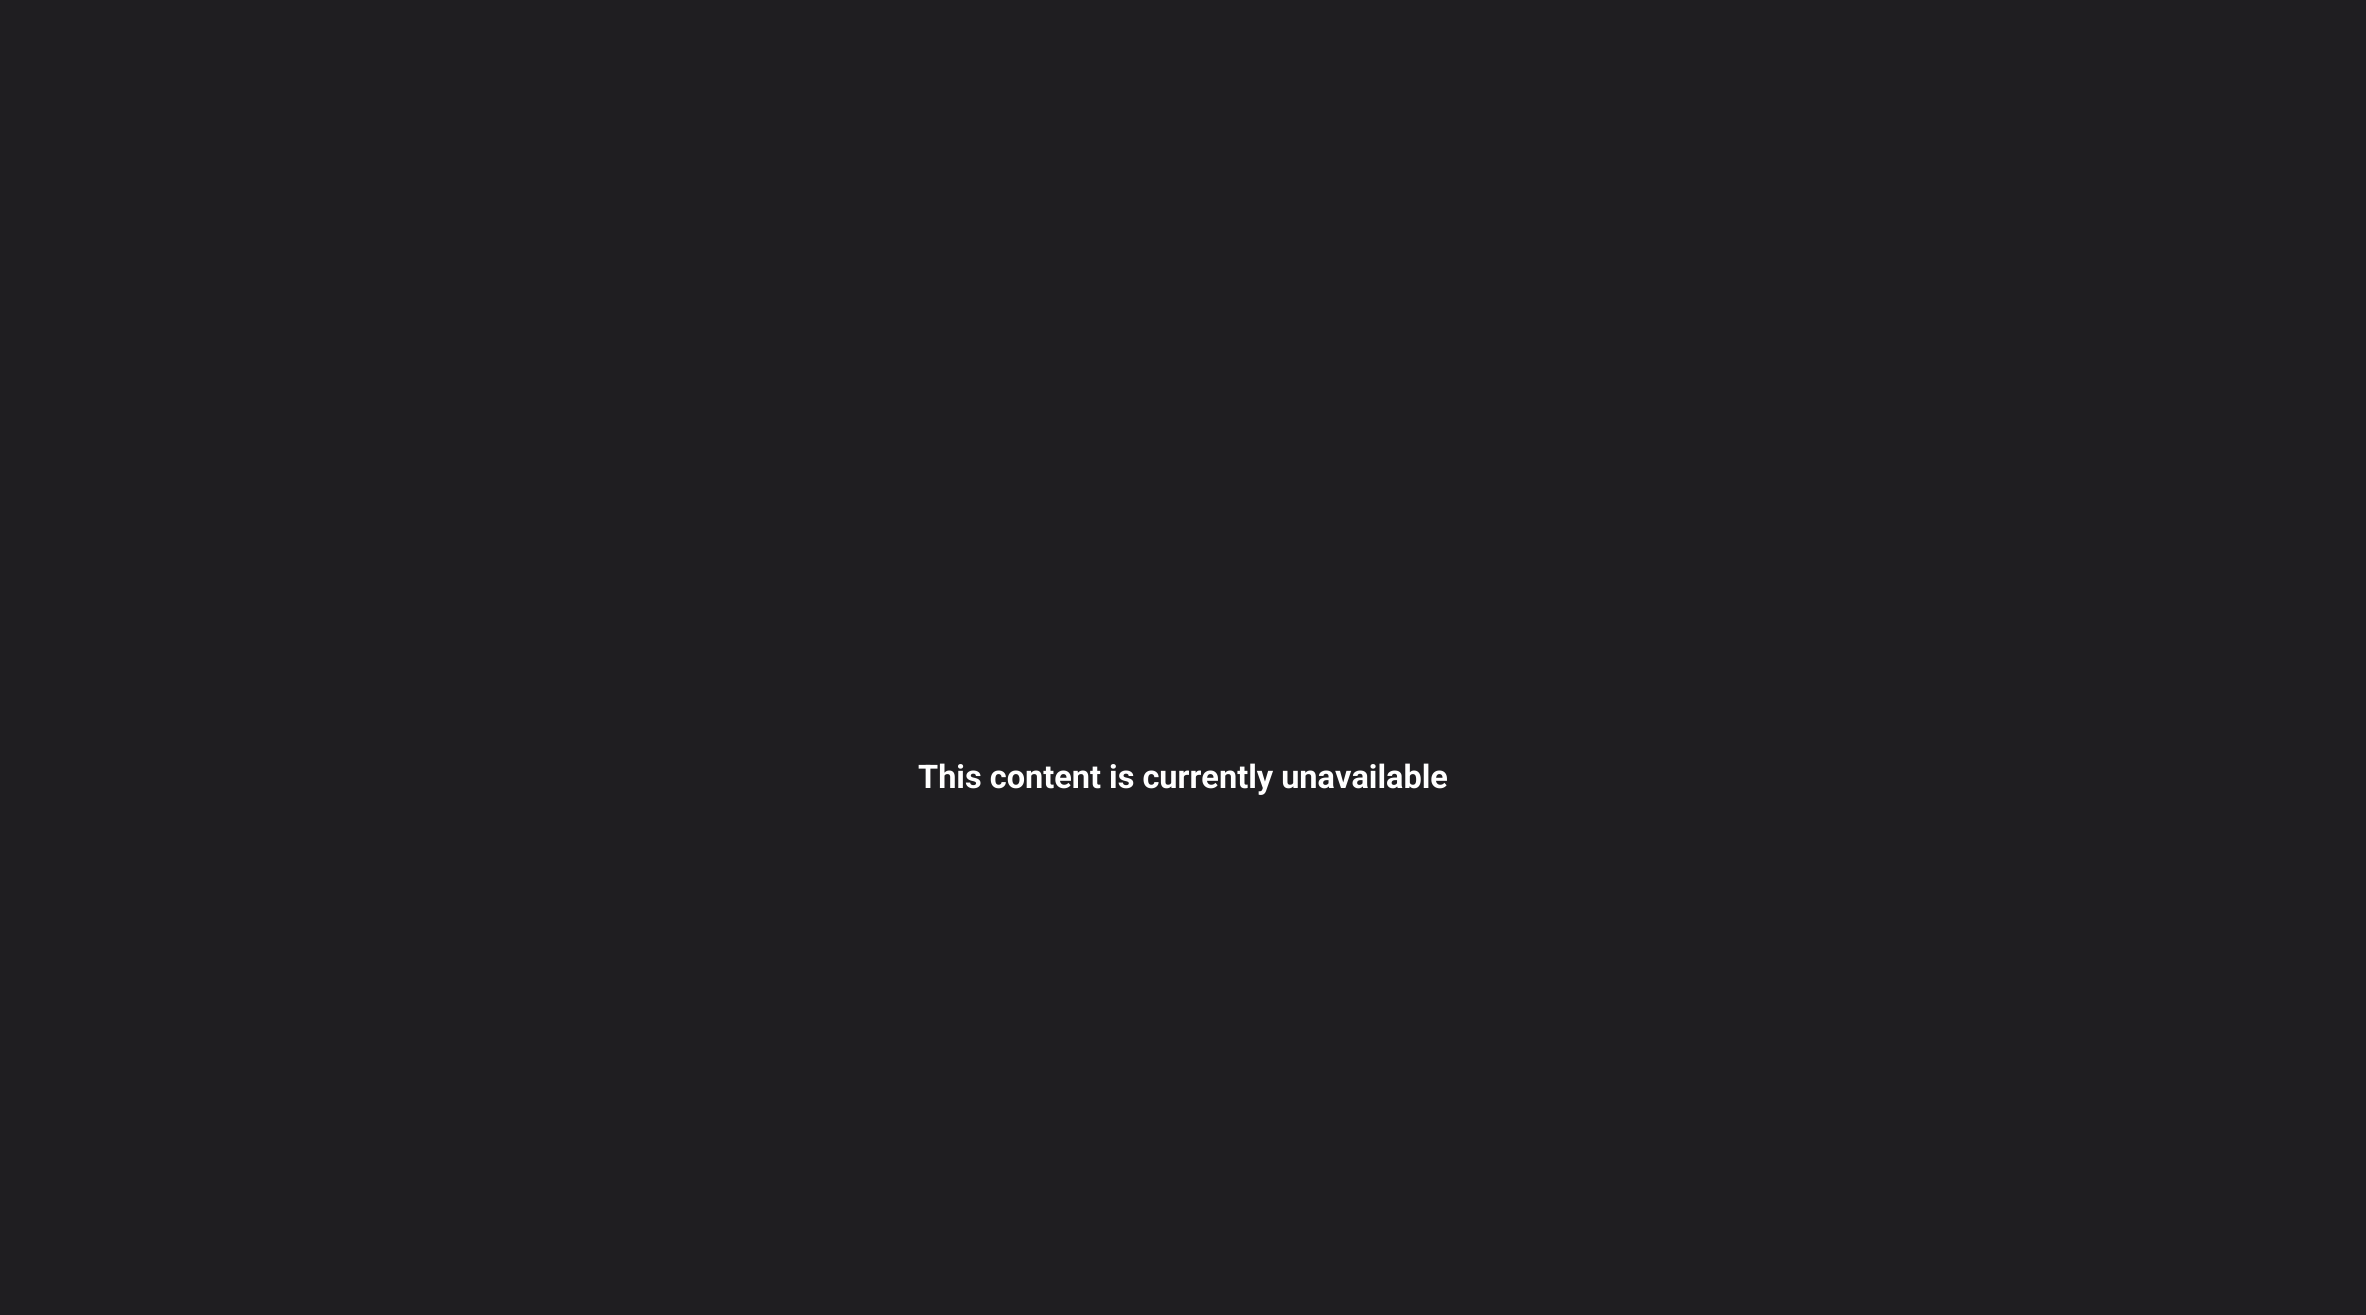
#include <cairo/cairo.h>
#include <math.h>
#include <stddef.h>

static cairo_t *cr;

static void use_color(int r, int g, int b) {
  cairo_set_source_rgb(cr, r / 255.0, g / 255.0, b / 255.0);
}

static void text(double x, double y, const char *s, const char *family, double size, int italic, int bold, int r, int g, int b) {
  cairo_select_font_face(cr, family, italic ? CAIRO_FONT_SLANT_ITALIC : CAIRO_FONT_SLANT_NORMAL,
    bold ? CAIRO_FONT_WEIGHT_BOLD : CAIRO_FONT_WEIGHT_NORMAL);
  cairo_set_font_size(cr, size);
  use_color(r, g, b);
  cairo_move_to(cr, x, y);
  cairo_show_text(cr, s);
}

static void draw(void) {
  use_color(31, 30, 33);
  cairo_paint(cr);
  text(918, 788, "This content is currently unavailable", "Roboto", 32.5, 0, 1, 255, 255, 255);
}

int main(void) {
  cairo_surface_t *surface = cairo_image_surface_create(CAIRO_FORMAT_RGB24, 2366, 1315);
  cr = cairo_create(surface);
  cairo_font_options_t *options = cairo_font_options_create();
  cairo_font_options_set_hint_metrics(options, CAIRO_HINT_METRICS_OFF);
  cairo_font_options_set_hint_style(options, CAIRO_HINT_STYLE_NONE);
  cairo_set_font_options(cr, options);
  cairo_set_miter_limit(cr, 4);
  draw();
  cairo_surface_write_to_png(surface, "out.png");
  cairo_font_options_destroy(options);
  cairo_destroy(cr);
  cairo_surface_destroy(surface);
  return 0;
}
